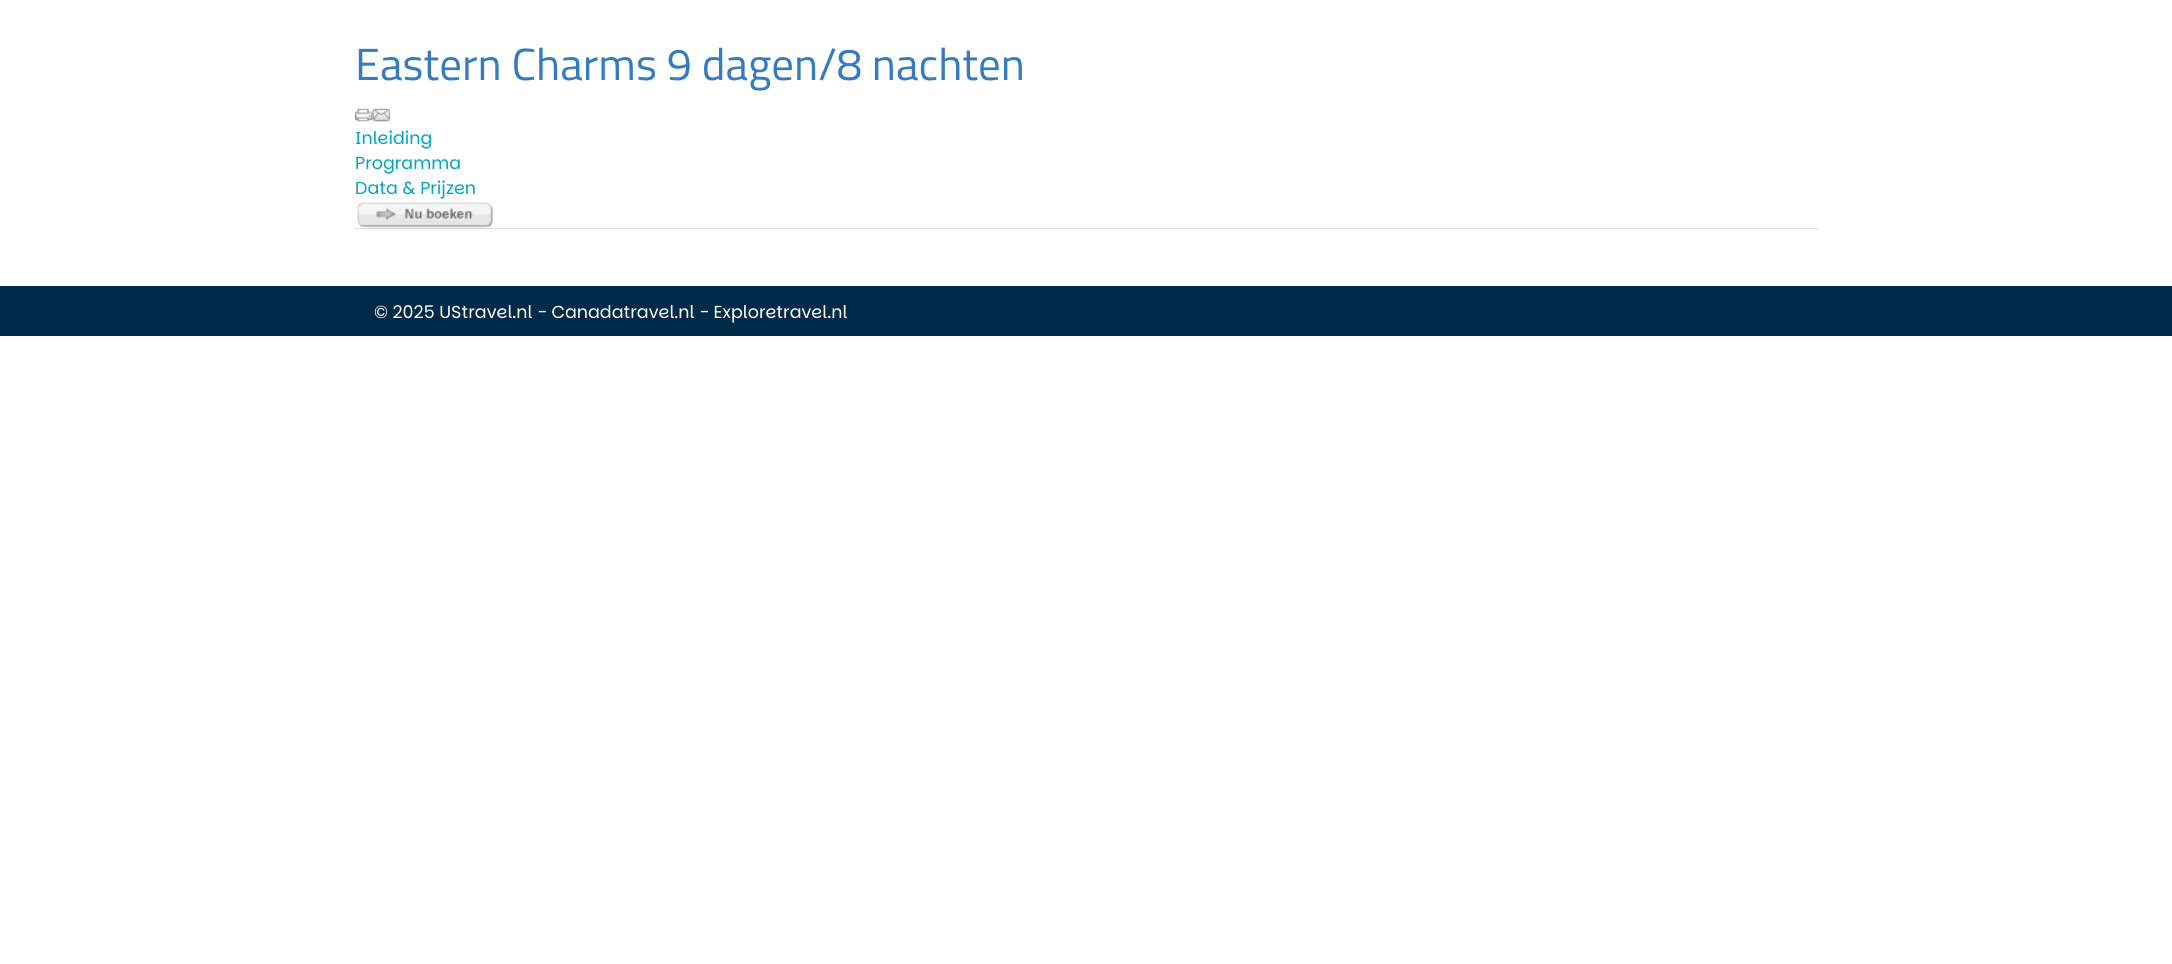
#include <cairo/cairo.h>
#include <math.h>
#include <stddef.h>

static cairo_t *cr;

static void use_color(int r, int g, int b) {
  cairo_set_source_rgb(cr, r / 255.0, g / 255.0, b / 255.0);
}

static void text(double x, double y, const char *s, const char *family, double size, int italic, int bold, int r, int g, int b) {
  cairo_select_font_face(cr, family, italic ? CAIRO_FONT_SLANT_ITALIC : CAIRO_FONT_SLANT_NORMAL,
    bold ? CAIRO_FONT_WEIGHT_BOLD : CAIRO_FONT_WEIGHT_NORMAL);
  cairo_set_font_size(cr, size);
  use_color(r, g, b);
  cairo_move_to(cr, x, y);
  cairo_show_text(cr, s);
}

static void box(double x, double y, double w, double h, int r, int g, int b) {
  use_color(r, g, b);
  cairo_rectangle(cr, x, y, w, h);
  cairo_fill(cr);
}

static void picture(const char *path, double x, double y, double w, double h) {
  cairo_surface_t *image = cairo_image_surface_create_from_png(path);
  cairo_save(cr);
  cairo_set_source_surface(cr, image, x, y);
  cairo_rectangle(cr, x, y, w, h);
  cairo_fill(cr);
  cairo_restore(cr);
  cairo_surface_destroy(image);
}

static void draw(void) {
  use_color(255, 255, 255);
  cairo_paint(cr);
  picture("img_01.png", 355, 108, 18, 14);
  picture("img_02.png", 372, 108, 18, 14);
  picture("img_03.png", 357, 202, 136, 26);
  box(355, 228, 1464, 1, 221, 221, 221);
  box(0, 286, 2172, 50, 0, 42, 71);
  text(355, 80, "Eastern Charms 9 dagen/8 nachten", "Titillium Web", 45, 0, 0, 54, 123, 192);
  text(355, 144, "Inleiding", "Parkinsans", 17.5, 0, 0, 0, 165, 195);
  text(355, 169, "Programma", "Parkinsans", 17.5, 0, 0, 0, 165, 195);
  text(355, 194, "Data & Prijzen", "Parkinsans", 17.5, 0, 0, 0, 165, 195);
  text(374, 318, "© 2025 UStravel.nl - Canadatravel.nl - Exploretravel.nl", "Parkinsans", 17.5, 0, 0, 255, 255, 255);
}

int main(void) {
  cairo_surface_t *surface = cairo_image_surface_create(CAIRO_FORMAT_RGB24, 2172, 964);
  cr = cairo_create(surface);
  cairo_font_options_t *options = cairo_font_options_create();
  cairo_font_options_set_hint_metrics(options, CAIRO_HINT_METRICS_OFF);
  cairo_font_options_set_hint_style(options, CAIRO_HINT_STYLE_NONE);
  cairo_set_font_options(cr, options);
  cairo_set_miter_limit(cr, 4);
  draw();
  cairo_surface_write_to_png(surface, "out.png");
  cairo_font_options_destroy(options);
  cairo_destroy(cr);
  cairo_surface_destroy(surface);
  return 0;
}
